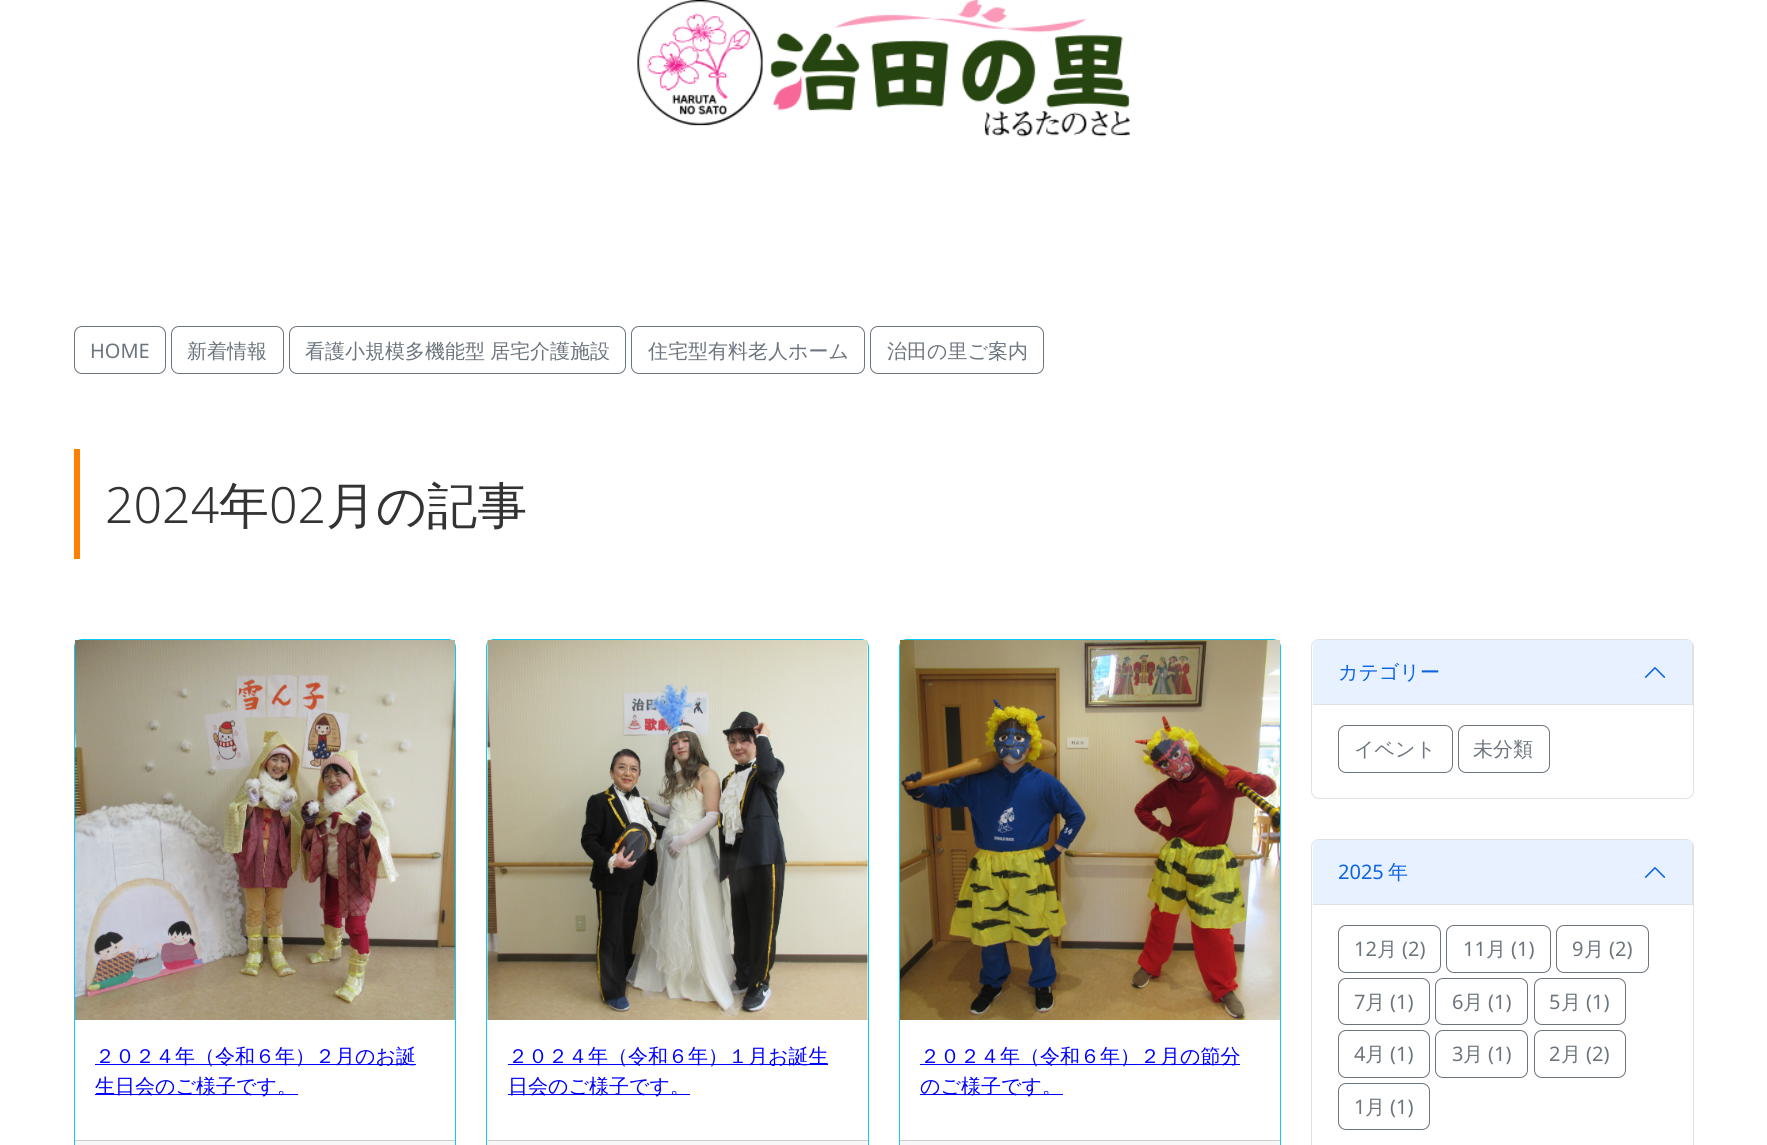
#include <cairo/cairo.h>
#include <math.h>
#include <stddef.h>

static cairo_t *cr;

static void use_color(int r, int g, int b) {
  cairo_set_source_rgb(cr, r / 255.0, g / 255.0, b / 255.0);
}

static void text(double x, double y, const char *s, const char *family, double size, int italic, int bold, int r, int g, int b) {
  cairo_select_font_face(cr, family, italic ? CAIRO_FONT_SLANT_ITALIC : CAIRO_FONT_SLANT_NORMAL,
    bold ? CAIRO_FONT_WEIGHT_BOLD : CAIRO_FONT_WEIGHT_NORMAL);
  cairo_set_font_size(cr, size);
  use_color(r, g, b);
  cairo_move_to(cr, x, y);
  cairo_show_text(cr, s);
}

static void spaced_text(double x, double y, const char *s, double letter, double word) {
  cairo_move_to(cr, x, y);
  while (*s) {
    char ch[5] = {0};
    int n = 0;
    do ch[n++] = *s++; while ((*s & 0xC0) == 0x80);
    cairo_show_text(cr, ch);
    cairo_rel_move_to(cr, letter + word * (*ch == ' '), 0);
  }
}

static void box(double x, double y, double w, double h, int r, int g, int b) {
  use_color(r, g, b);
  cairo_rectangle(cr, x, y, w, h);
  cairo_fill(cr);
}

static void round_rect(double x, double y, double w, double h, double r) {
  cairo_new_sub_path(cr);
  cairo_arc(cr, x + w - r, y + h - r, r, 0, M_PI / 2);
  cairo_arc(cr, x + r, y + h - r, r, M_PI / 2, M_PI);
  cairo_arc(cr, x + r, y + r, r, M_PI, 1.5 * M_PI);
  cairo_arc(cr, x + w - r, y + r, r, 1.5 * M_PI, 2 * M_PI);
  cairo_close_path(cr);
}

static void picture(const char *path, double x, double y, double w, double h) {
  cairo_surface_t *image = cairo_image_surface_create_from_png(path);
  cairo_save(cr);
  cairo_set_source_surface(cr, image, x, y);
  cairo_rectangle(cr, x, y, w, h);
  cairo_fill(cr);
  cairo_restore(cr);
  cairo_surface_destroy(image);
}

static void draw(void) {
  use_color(255, 255, 255);
  cairo_paint(cr);
  picture("img_01.png", 637, 0, 493, 137);
  round_rect(74.5, 326.5, 91, 47, 7.5);
  use_color(108, 117, 125);
  cairo_set_line_width(cr, 1);
  cairo_stroke(cr);
  round_rect(171.5, 326.5, 112, 47, 7.5);
  cairo_stroke(cr);
  round_rect(289.5, 326.5, 336, 47, 7.5);
  cairo_stroke(cr);
  round_rect(631.5, 326.5, 233, 47, 7.5);
  cairo_stroke(cr);
  round_rect(870.5, 326.5, 173, 47, 7.5);
  cairo_stroke(cr);
  box(74, 449, 6, 110, 255, 128, 0);
  round_rect(74.5, 639.5, 381, 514, 7.5);
  use_color(13, 202, 240);
  cairo_stroke(cr);
  picture("img_02.png", 75, 640, 380, 380);
  box(95, 1064, 321, 1, 0, 0, 255);
  box(95, 1094, 203, 1, 0, 0, 255);
  box(75, 1141, 380, 4, 247, 247, 247);
  box(75, 1140, 380, 1, 204, 204, 204);
  round_rect(486.5, 639.5, 382, 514, 7.5);
  use_color(13, 202, 240);
  cairo_stroke(cr);
  picture("img_03.png", 487, 640, 381, 380);
  box(508, 1064, 320, 1, 0, 0, 255);
  box(508, 1094, 182, 1, 0, 0, 255);
  box(488, 1141, 380, 4, 247, 247, 247);
  box(488, 1140, 380, 1, 204, 204, 204);
  round_rect(899.5, 639.5, 381, 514, 7.5);
  use_color(13, 202, 240);
  cairo_stroke(cr);
  picture("img_04.png", 900, 640, 380, 380);
  box(920, 1064, 320, 1, 0, 0, 255);
  box(920, 1094, 143, 1, 0, 0, 255);
  box(900, 1141, 380, 4, 247, 247, 247);
  box(900, 1140, 380, 1, 204, 204, 204);
  round_rect(1311.5, 639.5, 382, 159, 7.5);
  use_color(222, 226, 230);
  cairo_stroke(cr);
  use_color(231, 241, 255);
  cairo_new_path(cr);
  cairo_move_to(cr, 1319, 640);
  cairo_line_to(cr, 1687, 640);
  cairo_curve_to(cr, 1690.5, 640, 1693, 642.5, 1693, 646);
  cairo_line_to(cr, 1693, 705);
  cairo_line_to(cr, 1313, 705);
  cairo_line_to(cr, 1313, 646);
  cairo_curve_to(cr, 1313, 642.5, 1315.5, 640, 1319, 640);
  cairo_close_path(cr);
  cairo_fill(cr);
  use_color(222, 226, 230);
  cairo_new_path(cr);
  cairo_move_to(cr, 1313, 704);
  cairo_line_to(cr, 1313, 705);
  cairo_line_to(cr, 1693, 705);
  cairo_line_to(cr, 1693, 646);
  cairo_curve_to(cr, 1693, 644, 1692, 643, 1691, 642);
  cairo_curve_to(cr, 1692, 643, 1692, 644, 1692, 645);
  cairo_line_to(cr, 1692, 704);
  cairo_close_path(cr);
  cairo_fill(cr);
  picture("img_05.png", 1644, 667, 22, 11);
  round_rect(1338.5, 725.5, 114, 47, 7.5);
  use_color(108, 117, 125);
  cairo_stroke(cr);
  round_rect(1458.5, 725.5, 91, 47, 7.5);
  cairo_stroke(cr);
  cairo_new_path(cr);
  cairo_move_to(cr, 1319, 839.5);
  cairo_line_to(cr, 1686, 839.5);
  cairo_curve_to(cr, 1690, 839.5, 1693.5, 843, 1693.5, 847);
  cairo_line_to(cr, 1693.5, 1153.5);
  cairo_line_to(cr, 1311.5, 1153.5);
  cairo_line_to(cr, 1311.5, 847);
  cairo_curve_to(cr, 1311.5, 843, 1315, 839.5, 1319, 839.5);
  cairo_close_path(cr);
  use_color(222, 226, 230);
  cairo_stroke(cr);
  use_color(231, 241, 255);
  cairo_new_path(cr);
  cairo_move_to(cr, 1319, 840);
  cairo_line_to(cr, 1687, 840);
  cairo_curve_to(cr, 1690.5, 840, 1693, 842.5, 1693, 846);
  cairo_line_to(cr, 1693, 905);
  cairo_line_to(cr, 1313, 905);
  cairo_line_to(cr, 1313, 846);
  cairo_curve_to(cr, 1313, 842.5, 1315.5, 840, 1319, 840);
  cairo_close_path(cr);
  cairo_fill(cr);
  use_color(222, 226, 230);
  cairo_new_path(cr);
  cairo_move_to(cr, 1313, 904);
  cairo_line_to(cr, 1313, 905);
  cairo_line_to(cr, 1693, 905);
  cairo_line_to(cr, 1693, 846);
  cairo_curve_to(cr, 1693, 844, 1692, 843, 1691, 842);
  cairo_curve_to(cr, 1692, 843, 1692, 844, 1692, 845);
  cairo_line_to(cr, 1692, 904);
  cairo_close_path(cr);
  cairo_fill(cr);
  picture("img_05.png", 1644, 867, 22, 11);
  round_rect(1338.5, 925.5, 102, 47, 7.5);
  use_color(108, 117, 125);
  cairo_stroke(cr);
  round_rect(1446.5, 925.5, 104, 47, 7.5);
  cairo_stroke(cr);
  round_rect(1556.5, 925.5, 92, 47, 7.5);
  cairo_stroke(cr);
  round_rect(1338.5, 978.5, 91, 46, 7.5);
  cairo_stroke(cr);
  round_rect(1435.5, 978.5, 92, 46, 7.5);
  cairo_stroke(cr);
  round_rect(1534.5, 978.5, 91, 46, 7.5);
  cairo_stroke(cr);
  round_rect(1338.5, 1030.5, 91, 47, 7.5);
  cairo_stroke(cr);
  round_rect(1435.5, 1030.5, 92, 47, 7.5);
  cairo_stroke(cr);
  round_rect(1534.5, 1030.5, 91, 47, 7.5);
  cairo_stroke(cr);
  round_rect(1338.5, 1083.5, 91, 46, 7.5);
  cairo_stroke(cr);
  text(90, 358, "HOME", "Noto Sans", 20, 0, 0, 108, 117, 125);
  text(187, 358, "新着情報", "WenQuanYi Zen Hei Medium", 20, 0, 0, 108, 117, 125);
  spaced_text(305, 358, "看護小規模多機能型 居宅介護施設", 0, -1);
  text(648, 358, "住宅型有料老人ホーム", "WenQuanYi Zen Hei Medium", 20, 0, 0, 108, 117, 125);
  text(887, 358, "治田の里ご案内", "WenQuanYi Zen Hei Medium", 20, 0, 0, 108, 117, 125);
  text(105, 523, "2024", "Noto Sans Light", 50, 0, 0, 51, 51, 51);
  text(219, 523, "年", "WenQuanYi Zen Hei Medium", 50, 0, 0, 51, 51, 51);
  text(269, 523, "02", "Noto Sans Light", 50, 0, 0, 51, 51, 51);
  text(326, 523, "月の記事", "WenQuanYi Zen Hei Medium", 50, 0, 0, 51, 51, 51);
  text(95, 1063, "２０２４年（令和６年）２月のお誕", "WenQuanYi Zen Hei Medium", 20, 0, 0, 0, 0, 255);
  text(95, 1093, "生日会のご様子です。", "WenQuanYi Zen Hei Medium", 20, 0, 0, 0, 0, 255);
  text(508, 1063, "２０２４年（令和６年）１月お誕生", "WenQuanYi Zen Hei Medium", 20, 0, 0, 0, 0, 255);
  text(508, 1093, "日会のご様子です。", "WenQuanYi Zen Hei Medium", 20, 0, 0, 0, 0, 255);
  text(920, 1063, "２０２４年（令和６年）２月の節分", "WenQuanYi Zen Hei Medium", 20, 0, 0, 0, 0, 255);
  text(920, 1093, "のご様子です。", "WenQuanYi Zen Hei Medium", 20, 0, 0, 0, 0, 255);
  text(1338, 679, "カテゴリー", "WenQuanYi Zen Hei Medium", 20, 0, 0, 12, 99, 228);
  text(1354, 756, "イベント", "WenQuanYi Zen Hei Medium", 20, 0, 0, 108, 117, 125);
  text(1473, 756, "未分類", "WenQuanYi Zen Hei Medium", 20, 0, 0, 108, 117, 125);
  text(1338, 879, "2025", "Noto Sans", 20, 0, 0, 12, 99, 228);
  text(1388, 879, "年", "WenQuanYi Zen Hei Medium", 20, 0, 0, 12, 99, 228);
  text(1354, 956, "12", "Noto Sans", 20, 0, 0, 108, 117, 125);
  text(1377, 956, "月", "WenQuanYi Zen Hei Medium", 20, 0, 0, 108, 117, 125);
  text(1402, 956, "(2)", "Noto Sans", 20, 0, 0, 108, 117, 125);
  text(1463, 956, "11", "Noto Sans", 20, 0, 0, 108, 117, 125);
  text(1486, 956, "月", "WenQuanYi Zen Hei Medium", 20, 0, 0, 108, 117, 125);
  text(1511, 956, "(1)", "Noto Sans", 20, 0, 0, 108, 117, 125);
  text(1572, 956, "9", "Noto Sans", 20, 0, 0, 108, 117, 125);
  text(1584, 956, "月", "WenQuanYi Zen Hei Medium", 20, 0, 0, 108, 117, 125);
  text(1609, 956, "(2)", "Noto Sans", 20, 0, 0, 108, 117, 125);
  text(1354, 1009, "7", "Noto Sans", 20, 0, 0, 108, 117, 125);
  text(1365, 1009, "月", "WenQuanYi Zen Hei Medium", 20, 0, 0, 108, 117, 125);
  text(1390, 1009, "(1)", "Noto Sans", 20, 0, 0, 108, 117, 125);
  text(1452, 1009, "6", "Noto Sans", 20, 0, 0, 108, 117, 125);
  text(1463, 1009, "月", "WenQuanYi Zen Hei Medium", 20, 0, 0, 108, 117, 125);
  text(1488, 1009, "(1)", "Noto Sans", 20, 0, 0, 108, 117, 125);
  text(1549, 1009, "5", "Noto Sans", 20, 0, 0, 108, 117, 125);
  text(1561, 1009, "月", "WenQuanYi Zen Hei Medium", 20, 0, 0, 108, 117, 125);
  text(1586, 1009, "(1)", "Noto Sans", 20, 0, 0, 108, 117, 125);
  text(1354, 1061, "4", "Noto Sans", 20, 0, 0, 108, 117, 125);
  text(1365, 1061, "月", "WenQuanYi Zen Hei Medium", 20, 0, 0, 108, 117, 125);
  text(1390, 1061, "(1)", "Noto Sans", 20, 0, 0, 108, 117, 125);
  text(1452, 1061, "3", "Noto Sans", 20, 0, 0, 108, 117, 125);
  text(1463, 1061, "月", "WenQuanYi Zen Hei Medium", 20, 0, 0, 108, 117, 125);
  text(1488, 1061, "(1)", "Noto Sans", 20, 0, 0, 108, 117, 125);
  text(1549, 1061, "2", "Noto Sans", 20, 0, 0, 108, 117, 125);
  text(1561, 1061, "月", "WenQuanYi Zen Hei Medium", 20, 0, 0, 108, 117, 125);
  text(1586, 1061, "(2)", "Noto Sans", 20, 0, 0, 108, 117, 125);
  text(1354, 1114, "1", "Noto Sans", 20, 0, 0, 108, 117, 125);
  text(1365, 1114, "月", "WenQuanYi Zen Hei Medium", 20, 0, 0, 108, 117, 125);
  text(1390, 1114, "(1)", "Noto Sans", 20, 0, 0, 108, 117, 125);
}

int main(void) {
  cairo_surface_t *surface = cairo_image_surface_create(CAIRO_FORMAT_RGB24, 1767, 1145);
  cr = cairo_create(surface);
  cairo_font_options_t *options = cairo_font_options_create();
  cairo_font_options_set_hint_metrics(options, CAIRO_HINT_METRICS_OFF);
  cairo_font_options_set_hint_style(options, CAIRO_HINT_STYLE_NONE);
  cairo_set_font_options(cr, options);
  cairo_set_miter_limit(cr, 4);
  draw();
  cairo_surface_write_to_png(surface, "out.png");
  cairo_font_options_destroy(options);
  cairo_destroy(cr);
  cairo_surface_destroy(surface);
  return 0;
}
